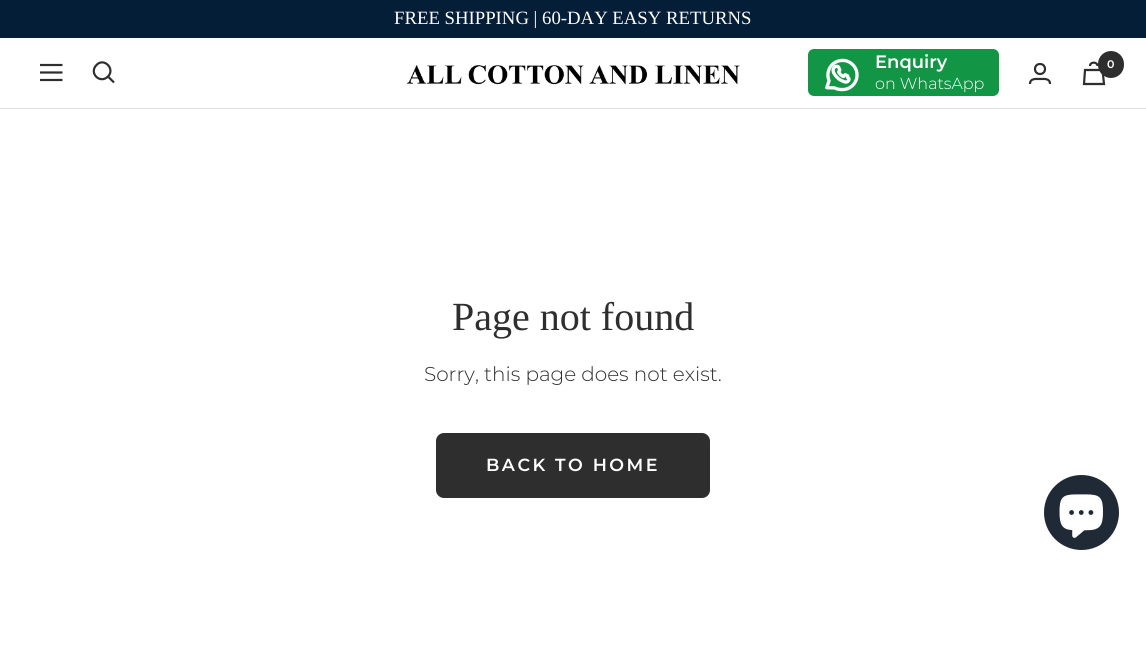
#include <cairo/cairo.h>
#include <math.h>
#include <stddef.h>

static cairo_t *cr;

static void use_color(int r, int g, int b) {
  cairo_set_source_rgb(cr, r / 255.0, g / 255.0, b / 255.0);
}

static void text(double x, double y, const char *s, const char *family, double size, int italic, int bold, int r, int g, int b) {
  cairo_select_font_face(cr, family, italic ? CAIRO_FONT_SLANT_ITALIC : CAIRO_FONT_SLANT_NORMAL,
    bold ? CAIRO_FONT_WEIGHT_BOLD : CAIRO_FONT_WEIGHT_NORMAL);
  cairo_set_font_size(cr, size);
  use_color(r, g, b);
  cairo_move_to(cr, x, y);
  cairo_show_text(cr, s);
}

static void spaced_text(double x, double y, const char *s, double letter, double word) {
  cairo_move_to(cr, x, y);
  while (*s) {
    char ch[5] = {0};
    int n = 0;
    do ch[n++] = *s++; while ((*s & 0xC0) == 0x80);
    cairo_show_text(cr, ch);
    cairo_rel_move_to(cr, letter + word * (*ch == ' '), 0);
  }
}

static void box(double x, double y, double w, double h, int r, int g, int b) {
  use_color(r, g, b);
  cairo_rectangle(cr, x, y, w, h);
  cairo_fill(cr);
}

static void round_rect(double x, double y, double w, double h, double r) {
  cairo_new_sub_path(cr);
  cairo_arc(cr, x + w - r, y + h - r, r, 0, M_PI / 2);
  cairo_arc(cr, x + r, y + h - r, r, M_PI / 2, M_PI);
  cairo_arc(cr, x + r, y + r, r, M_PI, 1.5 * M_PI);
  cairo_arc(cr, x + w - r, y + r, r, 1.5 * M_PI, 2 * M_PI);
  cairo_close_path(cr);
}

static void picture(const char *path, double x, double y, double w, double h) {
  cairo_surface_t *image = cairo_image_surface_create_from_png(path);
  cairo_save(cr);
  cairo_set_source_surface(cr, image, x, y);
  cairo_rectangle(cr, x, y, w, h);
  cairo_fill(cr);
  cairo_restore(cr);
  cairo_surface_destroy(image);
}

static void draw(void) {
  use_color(255, 255, 255);
  cairo_paint(cr);
  box(0, 0, 1146, 38, 5, 30, 56);
  box(0, 108, 1146, 1, 224, 224, 224);
  cairo_new_path(cr);
  cairo_move_to(cr, 40, 65);
  cairo_line_to(cr, 62.5, 65);
  cairo_move_to(cr, 40, 80);
  cairo_line_to(cr, 62.5, 80);
  cairo_close_path(cr);
  cairo_move_to(cr, 40, 72.5);
  cairo_line_to(cr, 62.5, 72.5);
  cairo_close_path(cr);
  use_color(46, 46, 46);
  cairo_set_line_width(cr, 2.2);
  cairo_stroke(cr);
  cairo_new_path(cr);
  cairo_move_to(cr, 108, 76.5);
  cairo_curve_to(cr, 115.5, 69, 104, 57, 96.5, 65);
  cairo_curve_to(cr, 88.5, 73, 100, 84.5, 108, 76.5);
  cairo_close_path(cr);
  cairo_move_to(cr, 108, 76.5);
  cairo_line_to(cr, 114, 82.5);
  cairo_stroke(cr);
  picture("img_01.png", 407, 65, 333, 20);
  use_color(18, 150, 69);
  round_rect(808, 49, 191, 47, 6);
  cairo_fill(cr);
  picture("img_02.png", 825, 58, 34, 34);
  cairo_arc(cr, 1040, 69, 5, 0, 2 * M_PI);
  use_color(46, 46, 46);
  cairo_stroke(cr);
  cairo_new_path(cr);
  cairo_move_to(cr, 1030, 84);
  cairo_curve_to(cr, 1030, 78, 1036, 79, 1040, 79);
  cairo_curve_to(cr, 1044, 79, 1050, 78, 1050, 84);
  cairo_stroke(cr);
  cairo_new_path(cr);
  cairo_move_to(cr, 1085, 70);
  cairo_line_to(cr, 1102.5, 70);
  cairo_line_to(cr, 1104, 84);
  cairo_line_to(cr, 1084, 84);
  cairo_close_path(cr);
  cairo_move_to(cr, 1097.5, 66);
  cairo_curve_to(cr, 1097.5, 61.5, 1090, 61.5, 1090, 66);
  cairo_stroke(cr);
  round_rect(1098, 51, 26, 27, 13);
  cairo_fill(cr);
  round_rect(436, 433, 274, 65, 8);
  cairo_fill(cr);
  use_color(32, 42, 54);
  cairo_arc(cr, 1081.5, 512.5, 37.5, 0, 2 * M_PI);
  cairo_fill(cr);
  picture("img_03.png", 1059, 494, 44, 44);
  text(394, 24, "FREE SHIPPING | 60-DAY EASY RETURNS", "Liberation Serif", 18.75, 0, 0, 255, 255, 255);
  text(875, 68, "Enquiry", "Montserrat SemiBold", 18, 0, 0, 255, 255, 255);
  text(875, 89, "on WhatsApp", "Montserrat Light", 16, 0, 0, 255, 255, 255);
  text(1107, 68, "0", "Montserrat SemiBold", 11, 0, 0, 255, 255, 255);
  text(452, 330, "Page not found", "Liberation Serif", 40, 0, 0, 46, 46, 46);
  text(424, 381, "Sorry, this page does not exist.", "Montserrat Light", 20, 0, 0, 46, 46, 46);
  cairo_select_font_face(cr, "Montserrat SemiBold", CAIRO_FONT_SLANT_NORMAL, CAIRO_FONT_WEIGHT_NORMAL);
  cairo_set_font_size(cr, 17.5);
  use_color(255, 255, 255);
  spaced_text(486, 471, "BACK TO HOME", 2.5, 0);
}

int main(void) {
  cairo_surface_t *surface = cairo_image_surface_create(CAIRO_FORMAT_RGB24, 1146, 656);
  cr = cairo_create(surface);
  cairo_font_options_t *options = cairo_font_options_create();
  cairo_font_options_set_hint_metrics(options, CAIRO_HINT_METRICS_OFF);
  cairo_font_options_set_hint_style(options, CAIRO_HINT_STYLE_NONE);
  cairo_set_font_options(cr, options);
  cairo_set_miter_limit(cr, 4);
  draw();
  cairo_surface_write_to_png(surface, "out.png");
  cairo_font_options_destroy(options);
  cairo_destroy(cr);
  cairo_surface_destroy(surface);
  return 0;
}
